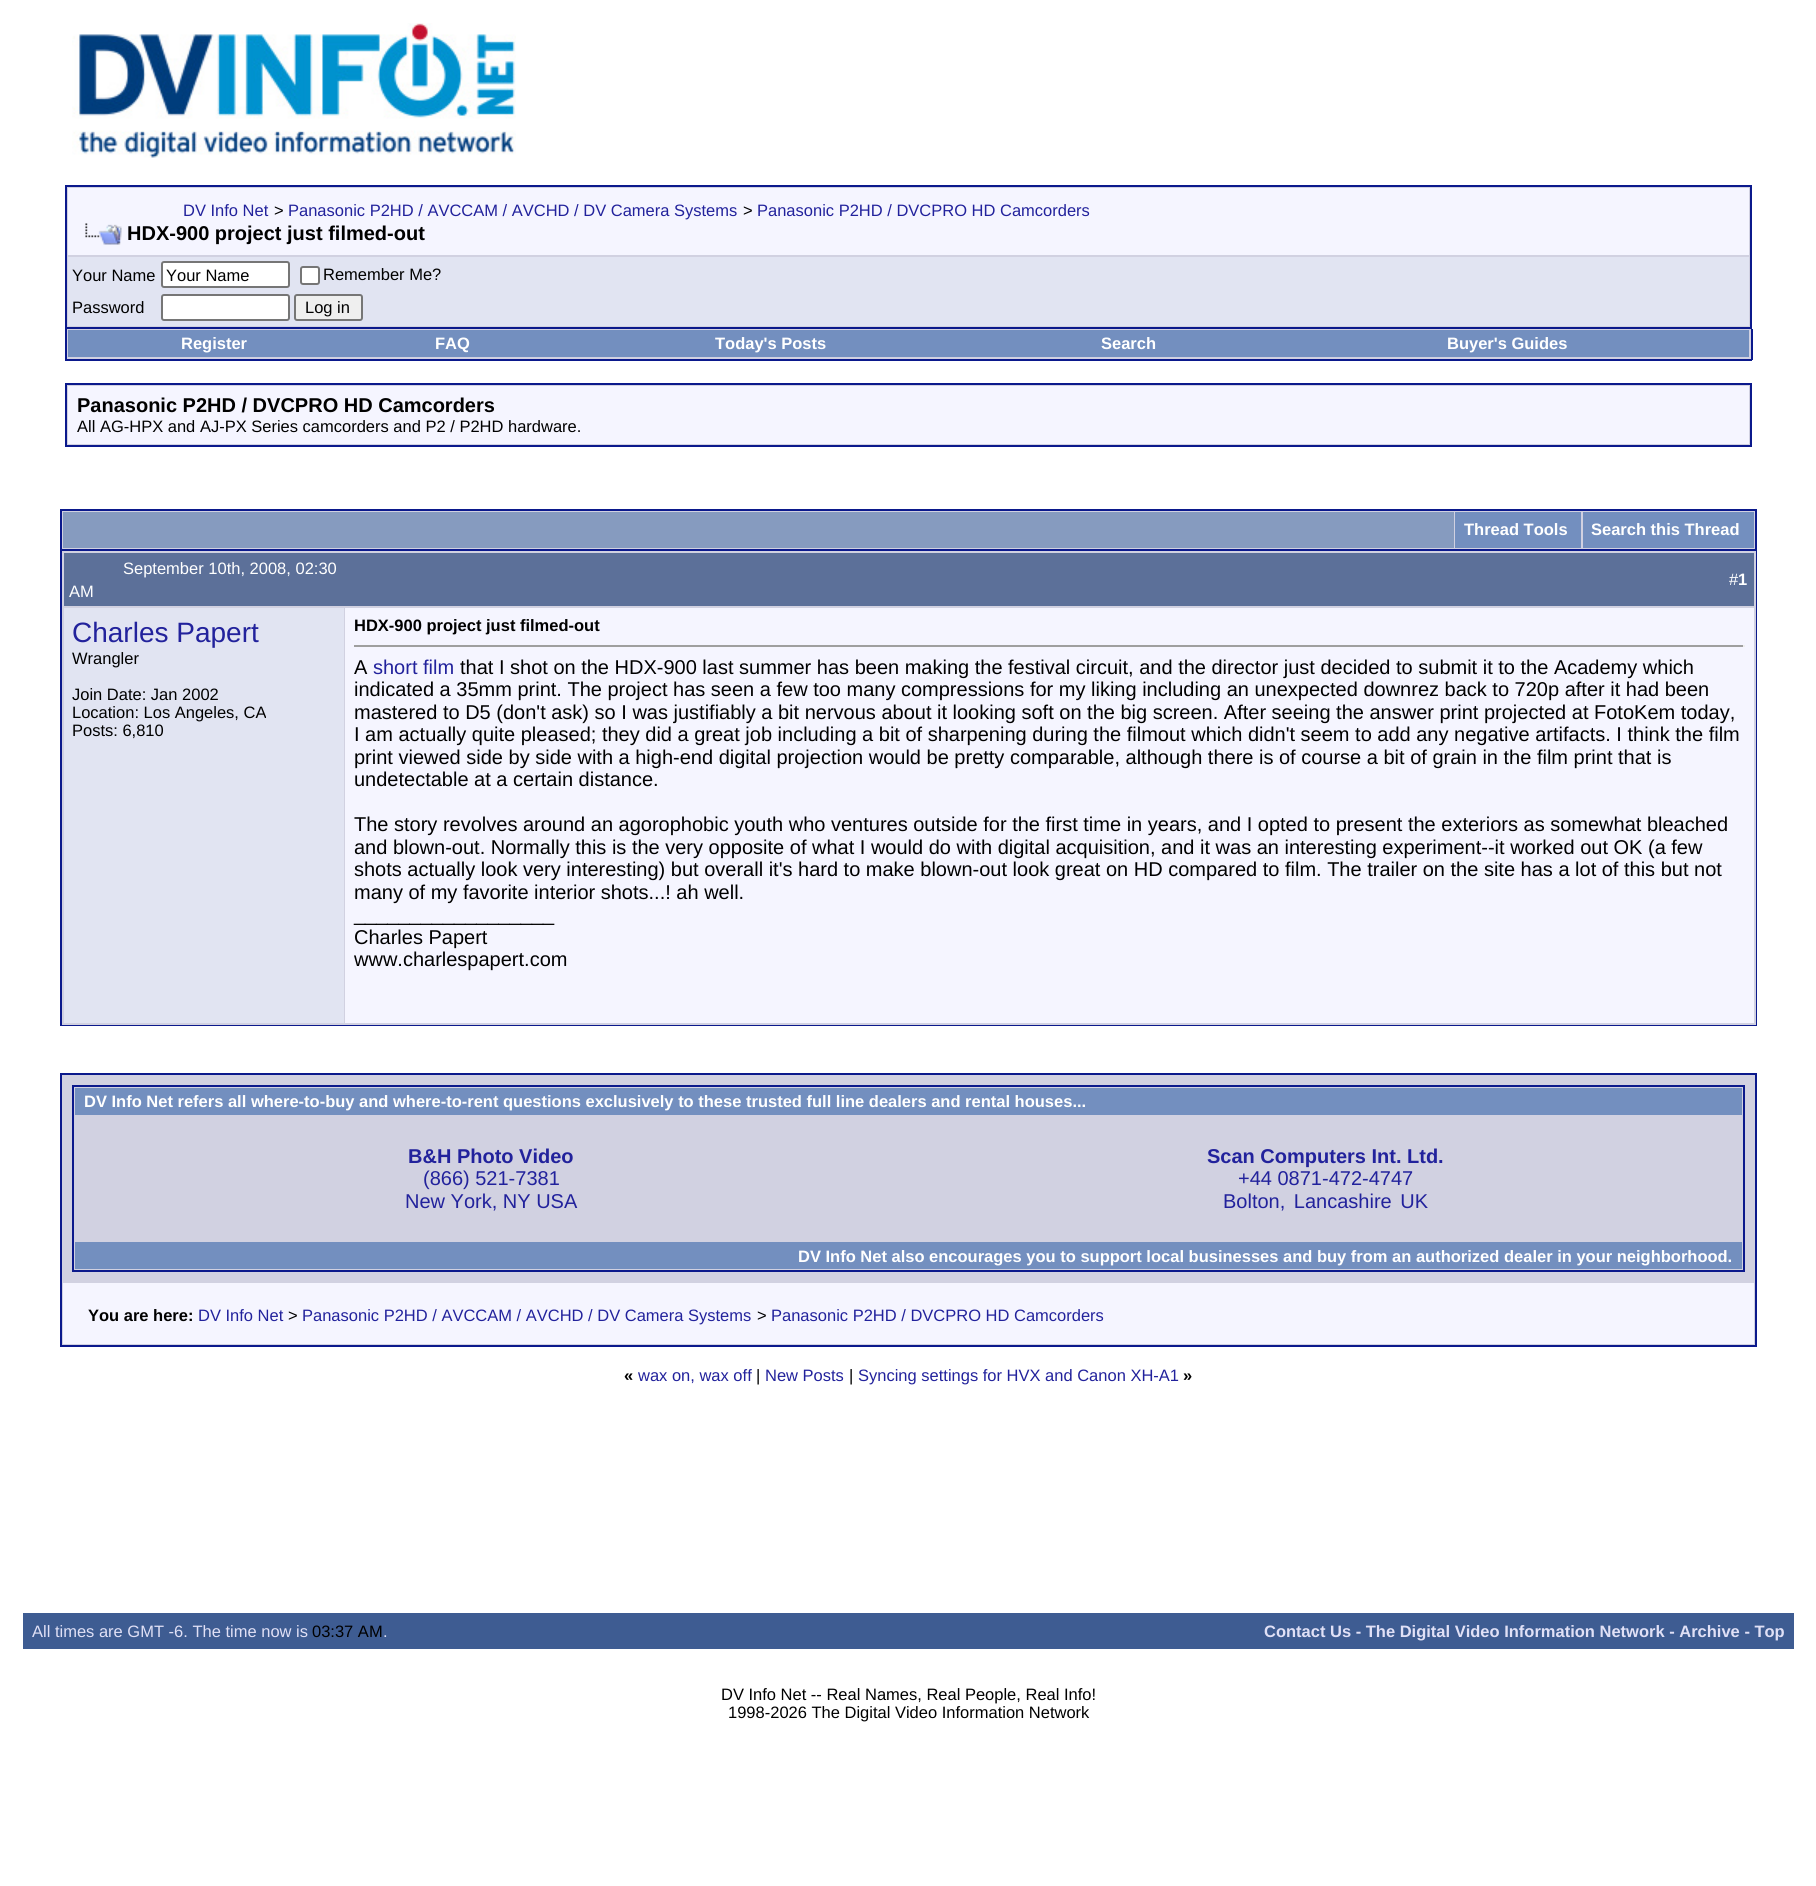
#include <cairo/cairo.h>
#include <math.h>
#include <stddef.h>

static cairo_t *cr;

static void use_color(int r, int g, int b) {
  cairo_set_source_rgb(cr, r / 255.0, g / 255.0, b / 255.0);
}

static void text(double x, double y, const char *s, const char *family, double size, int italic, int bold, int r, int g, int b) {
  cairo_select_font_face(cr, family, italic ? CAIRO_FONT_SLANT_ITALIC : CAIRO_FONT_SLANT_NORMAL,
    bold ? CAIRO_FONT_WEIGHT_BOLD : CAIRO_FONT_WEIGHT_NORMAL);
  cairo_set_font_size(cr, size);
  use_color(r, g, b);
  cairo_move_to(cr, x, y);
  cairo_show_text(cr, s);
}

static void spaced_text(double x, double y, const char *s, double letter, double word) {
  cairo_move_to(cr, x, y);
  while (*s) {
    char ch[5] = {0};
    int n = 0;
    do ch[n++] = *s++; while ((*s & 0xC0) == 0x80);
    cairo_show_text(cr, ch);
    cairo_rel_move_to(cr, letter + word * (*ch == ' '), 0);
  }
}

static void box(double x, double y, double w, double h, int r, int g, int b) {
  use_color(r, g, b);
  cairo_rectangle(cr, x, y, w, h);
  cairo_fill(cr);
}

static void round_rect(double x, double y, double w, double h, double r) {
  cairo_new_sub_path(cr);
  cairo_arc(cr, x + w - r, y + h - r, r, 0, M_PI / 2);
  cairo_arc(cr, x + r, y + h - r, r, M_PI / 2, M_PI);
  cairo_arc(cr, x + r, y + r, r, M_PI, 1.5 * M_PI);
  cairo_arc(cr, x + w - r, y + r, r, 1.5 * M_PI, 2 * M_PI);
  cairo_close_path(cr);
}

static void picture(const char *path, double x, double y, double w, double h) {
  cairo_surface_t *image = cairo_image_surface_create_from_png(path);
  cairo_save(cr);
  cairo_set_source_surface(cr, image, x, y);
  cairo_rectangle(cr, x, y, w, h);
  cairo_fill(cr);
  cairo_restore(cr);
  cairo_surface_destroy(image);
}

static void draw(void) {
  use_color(255, 255, 255);
  cairo_paint(cr);
  picture("img_01.png", 72, 23, 444, 135);
  use_color(209, 209, 225);
  cairo_rectangle(cr, 66, 186, 1685, 142);
  cairo_fill_preserve(cr);
  use_color(11, 25, 140);
  cairo_stroke(cr);
  box(68, 188, 1681, 67, 245, 245, 255);
  picture("img_02.png", 85, 223, 37, 22);
  box(68, 257, 1681, 69, 225, 228, 242);
  use_color(255, 255, 255);
  round_rect(162, 262, 127, 25, 2);
  cairo_fill_preserve(cr);
  use_color(118, 118, 118);
  cairo_stroke(cr);
  use_color(255, 255, 255);
  round_rect(301, 267, 18, 17, 2);
  cairo_fill_preserve(cr);
  use_color(118, 118, 118);
  cairo_stroke(cr);
  use_color(255, 255, 255);
  round_rect(162, 295, 127, 25, 2);
  cairo_fill_preserve(cr);
  use_color(118, 118, 118);
  cairo_stroke(cr);
  use_color(239, 239, 239);
  round_rect(295, 295, 67, 25, 2);
  cairo_fill_preserve(cr);
  use_color(118, 118, 118);
  cairo_stroke(cr);
  box(67, 329, 1684, 30, 209, 209, 225);
  box(1751, 329, 2, 31, 11, 25, 140);
  box(65, 359, 1687, 2, 11, 25, 140);
  box(65, 329, 2, 31, 11, 25, 140);
  box(68, 330, 1681, 27, 115, 143, 191);
  use_color(209, 209, 225);
  cairo_rectangle(cr, 66, 384, 1685, 62);
  cairo_fill_preserve(cr);
  use_color(11, 25, 140);
  cairo_stroke(cr);
  box(68, 386, 1681, 58, 245, 245, 255);
  box(62, 511, 1693, 38, 209, 209, 225);
  box(60, 509, 1697, 2, 11, 25, 140);
  box(1755, 509, 2, 40, 11, 25, 140);
  box(60, 509, 2, 40, 11, 25, 140);
  box(63, 512, 1391, 36, 134, 155, 191);
  box(1455, 512, 126, 36, 115, 143, 191);
  box(1583, 512, 171, 36, 115, 143, 191);
  cairo_rectangle(cr, 61, 550, 1695, 475);
  use_color(11, 25, 140);
  cairo_stroke(cr);
  box(64, 553, 1690, 53, 92, 112, 153);
  box(62, 551, 1693, 2, 209, 209, 225);
  box(62, 606, 283, 2, 209, 209, 225);
  box(62, 551, 2, 429, 209, 209, 225);
  box(1754, 551, 2, 474, 209, 209, 225);
  box(345, 606, 1410, 2, 209, 209, 225);
  box(64, 608, 280, 415, 225, 228, 242);
  box(344, 608, 1, 417, 209, 209, 225);
  box(345, 608, 1409, 415, 245, 245, 255);
  box(354, 645, 1391, 2, 159, 159, 159);
  box(1743, 645, 2, 2, 238, 238, 238);
  box(62, 1023, 1693, 2, 209, 209, 225);
  box(62, 980, 2, 45, 209, 209, 225);
  cairo_rectangle(cr, 61, 1074, 1695, 272);
  cairo_fill_preserve(cr);
  use_color(11, 25, 140);
  cairo_stroke(cr);
  cairo_rectangle(cr, 73, 1086, 1671, 185);
  cairo_stroke(cr);
  box(75, 1088, 1667, 27, 115, 143, 191);
  box(75, 1242, 1667, 27, 115, 143, 191);
  box(63, 1283, 1691, 61, 245, 245, 255);
  box(23, 1613, 1771, 36, 62, 92, 146);
  text(183, 216, "DV Info Net", "Liberation Sans", 16.5, 0, 0, 34, 34, 156);
  text(274, 216, ">", "Liberation Sans", 16.5, 0, 0, 0, 0, 0);
  text(288, 216, "Panasonic P2HD / AVCCAM / AVCHD / DV Camera Systems", "Liberation Sans", 16.5, 0, 0, 34, 34, 156);
  text(743, 216, ">", "Liberation Sans", 16.5, 0, 0, 0, 0, 0);
  text(757, 216, "Panasonic P2HD / DVCPRO HD Camcorders", "Liberation Sans", 16.5, 0, 0, 34, 34, 156);
  text(127, 240, "HDX-900 project just filmed-out", "Liberation Sans", 20, 0, 1, 0, 0, 0);
  text(72, 281, "Your Name", "Liberation Sans", 16.5, 0, 0, 0, 0, 0);
  text(166, 281, "Your Name", "Liberation Sans", 16.5, 0, 0, 0, 0, 0);
  text(323, 280, "Remember Me?", "Liberation Sans", 16.5, 0, 0, 0, 0, 0);
  text(72, 313, "Password", "Liberation Sans", 16.5, 0, 0, 0, 0, 0);
  text(305, 313, "Log in", "Liberation Sans", 16.5, 0, 0, 0, 0, 0);
  text(181, 349, "Register", "Liberation Sans", 16.5, 0, 1, 255, 255, 255);
  text(435, 349, "FAQ", "Liberation Sans", 16.5, 0, 1, 255, 255, 255);
  text(715, 349, "Today's Posts", "Liberation Sans", 16.5, 0, 1, 255, 255, 255);
  text(1101, 349, "Search", "Liberation Sans", 16.5, 0, 1, 255, 255, 255);
  text(1447, 349, "Buyer's Guides", "Liberation Sans", 16.5, 0, 1, 255, 255, 255);
  text(77, 412, "Panasonic P2HD / DVCPRO HD Camcorders", "Liberation Sans", 20, 0, 1, 0, 0, 0);
  text(77, 432, "All AG-HPX and AJ-PX Series camcorders and P2 / P2HD hardware.", "Liberation Sans", 16.5, 0, 0, 0, 0, 0);
  text(1464, 535, "Thread Tools", "Liberation Sans", 16.5, 0, 1, 255, 255, 255);
  text(1591, 535, "Search this Thread", "Liberation Sans", 16.5, 0, 1, 255, 255, 255);
  text(123, 574, "September 10th, 2008, 02:30", "Liberation Sans", 16.5, 0, 0, 255, 255, 255);
  text(69, 597, "AM", "Liberation Sans", 16.5, 0, 0, 255, 255, 255);
  text(1729, 585, "#", "Liberation Sans", 16.5, 0, 0, 255, 255, 255);
  text(1738, 585, "1", "Liberation Sans", 16.5, 0, 1, 255, 255, 255);
  text(72, 642, "Charles Papert", "Liberation Sans", 28, 0, 0, 34, 34, 156);
  text(72, 664, "Wrangler", "Liberation Sans", 16.5, 0, 0, 0, 0, 0);
  text(72, 700, "Join Date: Jan 2002", "Liberation Sans", 16.5, 0, 0, 0, 0, 0);
  text(72, 718, "Location: Los Angeles, CA", "Liberation Sans", 16.5, 0, 0, 0, 0, 0);
  text(72, 736, "Posts: 6,810", "Liberation Sans", 16.5, 0, 0, 0, 0, 0);
  text(354, 631, "HDX-900 project just filmed-out", "Liberation Sans", 16.5, 0, 1, 0, 0, 0);
  text(354, 674, "A", "Liberation Sans", 20, 0, 0, 0, 0, 0);
  text(373, 674, "short film", "Liberation Sans", 20, 0, 0, 34, 34, 156);
  text(460, 674, "that I shot on the HDX-900 last summer has been making the festival circuit, and the director just decided to submit it to the Academy which", "Liberation Sans", 20, 0, 0, 0, 0, 0);
  text(354, 696, "indicated a 35mm print. The project has seen a few too many compressions for my liking including an unexpected downrez back to 720p after it had been", "Liberation Sans", 20, 0, 0, 0, 0, 0);
  text(354, 719, "mastered to D5 (don't ask) so I was justifiably a bit nervous about it looking soft on the big screen. After seeing the answer print projected at FotoKem today,", "Liberation Sans", 20, 0, 0, 0, 0, 0);
  text(354, 741, "I am actually quite pleased; they did a great job including a bit of sharpening during the filmout which didn't seem to add any negative artifacts. I think the film", "Liberation Sans", 20, 0, 0, 0, 0, 0);
  text(354, 764, "print viewed side by side with a high-end digital projection would be pretty comparable, although there is of course a bit of grain in the film print that is", "Liberation Sans", 20, 0, 0, 0, 0, 0);
  text(354, 786, "undetectable at a certain distance.", "Liberation Sans", 20, 0, 0, 0, 0, 0);
  text(354, 831, "The story revolves around an agorophobic youth who ventures outside for the first time in years, and I opted to present the exteriors as somewhat bleached", "Liberation Sans", 20, 0, 0, 0, 0, 0);
  text(354, 854, "and blown-out. Normally this is the very opposite of what I would do with digital acquisition, and it was an interesting experiment--it worked out OK (a few", "Liberation Sans", 20, 0, 0, 0, 0, 0);
  text(354, 876, "shots actually look very interesting) but overall it's hard to make blown-out look great on HD compared to film. The trailer on the site has a lot of this but not", "Liberation Sans", 20, 0, 0, 0, 0, 0);
  text(354, 899, "many of my favorite interior shots...! ah well.", "Liberation Sans", 20, 0, 0, 0, 0, 0);
  text(354, 921, "__________________", "Liberation Sans", 20, 0, 0, 0, 0, 0);
  text(354, 944, "Charles Papert", "Liberation Sans", 20, 0, 0, 0, 0, 0);
  text(354, 966, "www.charlespapert.com", "Liberation Sans", 20, 0, 0, 0, 0, 0);
  text(84, 1107, "DV Info Net refers all where-to-buy and where-to-rent questions exclusively to these trusted full line dealers and rental houses...", "Liberation Sans", 16.5, 0, 1, 255, 255, 255);
  text(408, 1163, "B&H Photo Video", "Liberation Sans", 20, 0, 1, 34, 34, 156);
  text(423, 1185, "(866) 521-7381", "Liberation Sans", 20, 0, 0, 34, 34, 156);
  text(405, 1208, "New York, NY USA", "Liberation Sans", 20, 0, 0, 34, 34, 156);
  text(1207, 1163, "Scan Computers Int. Ltd.", "Liberation Sans", 20, 0, 1, 34, 34, 156);
  text(1238, 1185, "+44 0871-472-4747", "Liberation Sans", 20, 0, 0, 34, 34, 156);
  spaced_text(1223, 1208, "Bolton, Lancashire UK", 0, 3);
  text(798, 1262, "DV Info Net also encourages you to support local businesses and buy from an authorized dealer in your neighborhood.", "Liberation Sans", 16.5, 0, 1, 255, 255, 255);
  text(88, 1321, "You are here:", "Liberation Sans", 16.5, 0, 1, 0, 0, 0);
  text(198, 1321, "DV Info Net", "Liberation Sans", 16.5, 0, 0, 34, 34, 156);
  text(288, 1321, ">", "Liberation Sans", 16.5, 0, 0, 0, 0, 0);
  text(302, 1321, "Panasonic P2HD / AVCCAM / AVCHD / DV Camera Systems", "Liberation Sans", 16.5, 0, 0, 34, 34, 156);
  text(757, 1321, ">", "Liberation Sans", 16.5, 0, 0, 0, 0, 0);
  text(771, 1321, "Panasonic P2HD / DVCPRO HD Camcorders", "Liberation Sans", 16.5, 0, 0, 34, 34, 156);
  text(624, 1381, "«", "Liberation Sans", 16.5, 0, 1, 0, 0, 0);
  text(638, 1381, "wax on, wax off", "Liberation Sans", 16.5, 0, 0, 34, 34, 156);
  text(756, 1381, "|", "Liberation Sans", 16.5, 0, 0, 0, 0, 0);
  text(765, 1381, "New Posts", "Liberation Sans", 16.5, 0, 0, 34, 34, 156);
  text(849, 1381, "|", "Liberation Sans", 16.5, 0, 0, 0, 0, 0);
  text(858, 1381, "Syncing settings for HVX and Canon XH-A1", "Liberation Sans", 16.5, 0, 0, 34, 34, 156);
  text(1183, 1381, "»", "Liberation Sans", 16.5, 0, 1, 0, 0, 0);
  text(32, 1637, "All times are GMT -6. The time now is", "Liberation Sans", 16.5, 0, 0, 224, 224, 246);
  text(312, 1637, "03:37 AM", "Liberation Sans", 16.5, 0, 0, 0, 0, 0);
  text(383, 1637, ".", "Liberation Sans", 16.5, 0, 0, 224, 224, 246);
  text(1264, 1637, "Contact Us - The Digital Video Information Network - Archive - Top", "Liberation Sans", 16.5, 0, 1, 224, 224, 246);
  text(721, 1700, "DV Info Net -- Real Names, Real People, Real Info!", "Liberation Sans", 16.5, 0, 0, 0, 0, 0);
  text(728, 1718, "1998-2026 The Digital Video Information Network", "Liberation Sans", 16.5, 0, 0, 0, 0, 0);
}

int main(void) {
  cairo_surface_t *surface = cairo_image_surface_create(CAIRO_FORMAT_RGB24, 1816, 1886);
  cr = cairo_create(surface);
  cairo_font_options_t *options = cairo_font_options_create();
  cairo_font_options_set_hint_metrics(options, CAIRO_HINT_METRICS_OFF);
  cairo_font_options_set_hint_style(options, CAIRO_HINT_STYLE_NONE);
  cairo_set_font_options(cr, options);
  cairo_set_miter_limit(cr, 4);
  draw();
  cairo_surface_write_to_png(surface, "out.png");
  cairo_font_options_destroy(options);
  cairo_destroy(cr);
  cairo_surface_destroy(surface);
  return 0;
}
